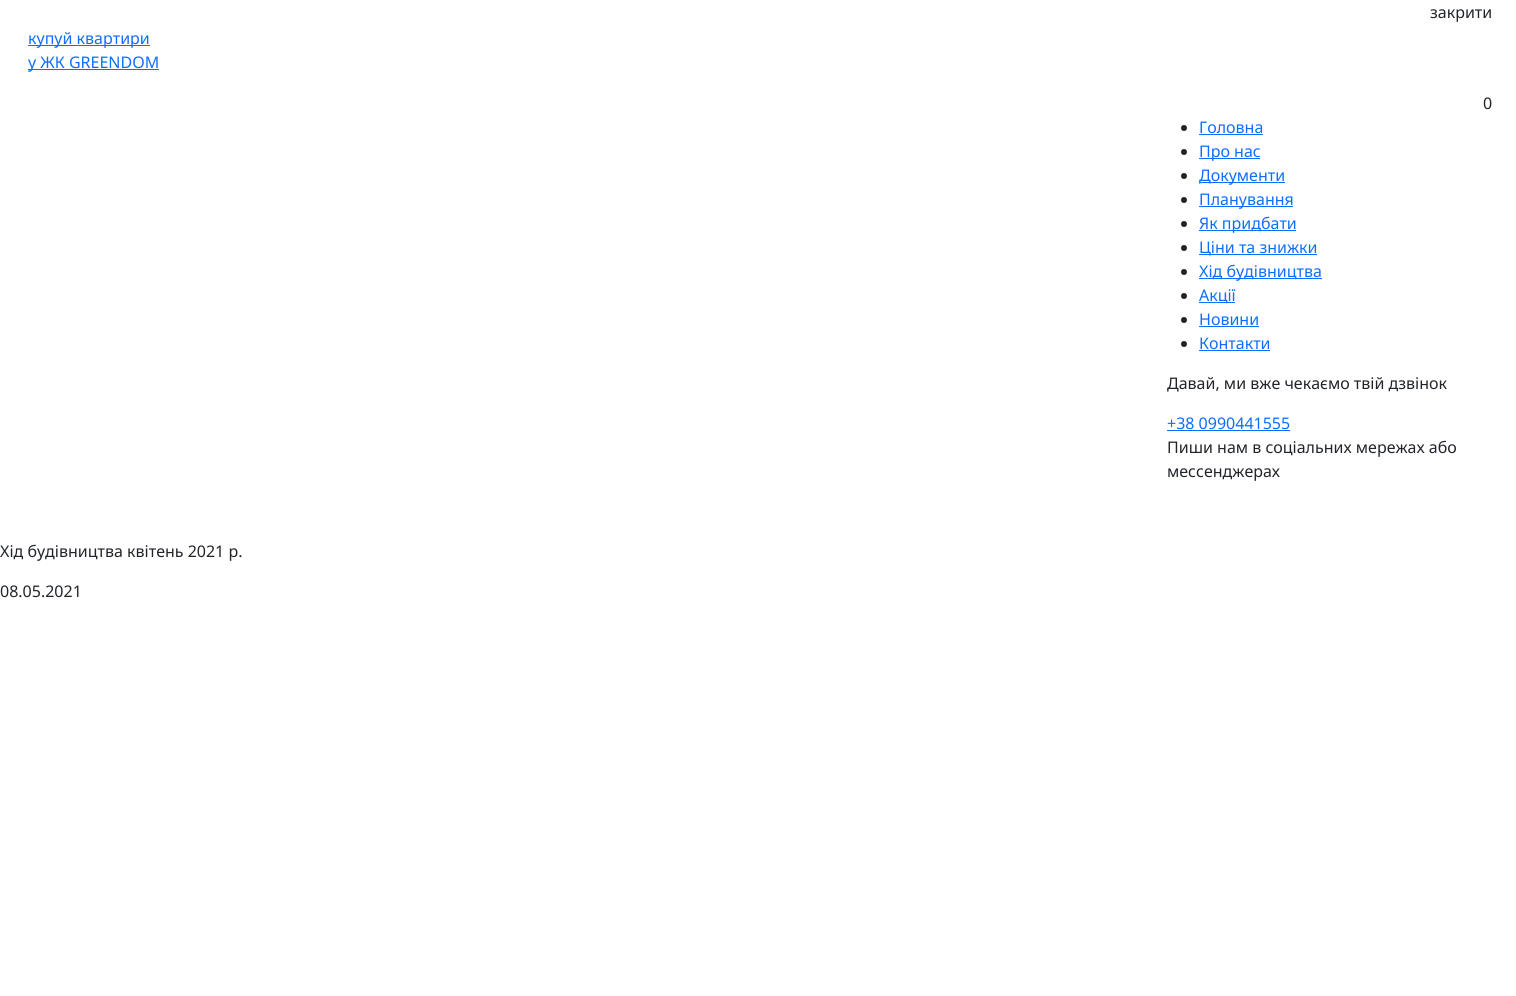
#include <cairo/cairo.h>
#include <math.h>
#include <stddef.h>

static cairo_t *cr;

static void use_color(int r, int g, int b) {
  cairo_set_source_rgb(cr, r / 255.0, g / 255.0, b / 255.0);
}

static void text(double x, double y, const char *s, const char *family, double size, int italic, int bold, int r, int g, int b) {
  cairo_select_font_face(cr, family, italic ? CAIRO_FONT_SLANT_ITALIC : CAIRO_FONT_SLANT_NORMAL,
    bold ? CAIRO_FONT_WEIGHT_BOLD : CAIRO_FONT_WEIGHT_NORMAL);
  cairo_set_font_size(cr, size);
  use_color(r, g, b);
  cairo_move_to(cr, x, y);
  cairo_show_text(cr, s);
}

static void box(double x, double y, double w, double h, int r, int g, int b) {
  use_color(r, g, b);
  cairo_rectangle(cr, x, y, w, h);
  cairo_fill(cr);
}

static void draw(void) {
  use_color(255, 255, 255);
  cairo_paint(cr);
  box(28, 45, 122, 1, 13, 110, 253);
  box(28, 69, 131, 1, 13, 110, 253);
  use_color(33, 37, 41);
  cairo_arc(cr, 1184, 128, 3, 0, 2 * M_PI);
  cairo_fill(cr);
  box(1199, 134, 64, 1, 13, 110, 253);
  use_color(33, 37, 41);
  cairo_arc(cr, 1184, 152, 3, 0, 2 * M_PI);
  cairo_fill(cr);
  box(1199, 158, 61, 1, 13, 110, 253);
  use_color(33, 37, 41);
  cairo_arc(cr, 1184, 176, 3, 0, 2 * M_PI);
  cairo_fill(cr);
  box(1199, 182, 86, 1, 13, 110, 253);
  use_color(33, 37, 41);
  cairo_arc(cr, 1184, 200, 3, 0, 2 * M_PI);
  cairo_fill(cr);
  box(1199, 206, 94, 1, 13, 110, 253);
  use_color(33, 37, 41);
  cairo_arc(cr, 1184, 224, 3, 0, 2 * M_PI);
  cairo_fill(cr);
  box(1199, 230, 97, 1, 13, 110, 253);
  use_color(33, 37, 41);
  cairo_arc(cr, 1184, 248, 3, 0, 2 * M_PI);
  cairo_fill(cr);
  box(1199, 254, 118, 1, 13, 110, 253);
  use_color(33, 37, 41);
  cairo_arc(cr, 1184, 272, 3, 0, 2 * M_PI);
  cairo_fill(cr);
  box(1199, 278, 123, 1, 13, 110, 253);
  use_color(33, 37, 41);
  cairo_arc(cr, 1184, 296, 3, 0, 2 * M_PI);
  cairo_fill(cr);
  box(1199, 302, 36, 1, 13, 110, 253);
  use_color(33, 37, 41);
  cairo_arc(cr, 1184, 320, 3, 0, 2 * M_PI);
  cairo_fill(cr);
  box(1199, 326, 60, 1, 13, 110, 253);
  use_color(33, 37, 41);
  cairo_arc(cr, 1184, 344, 3, 0, 2 * M_PI);
  cairo_fill(cr);
  box(1199, 350, 71, 1, 13, 110, 253);
  box(1167, 430, 123, 1, 13, 110, 253);
  text(28, 44, "купуй квартири", "Noto Sans", 16, 0, 0, 13, 110, 253);
  text(28, 68, "у ЖК GREENDOM", "Noto Sans", 16, 0, 0, 13, 110, 253);
  text(1430, 18, "закрити", "Noto Sans", 16, 0, 0, 33, 37, 41);
  text(1483, 109, "0", "Noto Sans", 16, 0, 0, 33, 37, 41);
  text(1199, 133, "Головна", "Noto Sans", 16, 0, 0, 13, 110, 253);
  text(1199, 157, "Про нас", "Noto Sans", 16, 0, 0, 13, 110, 253);
  text(1199, 181, "Документи", "Noto Sans", 16, 0, 0, 13, 110, 253);
  text(1199, 205, "Планування", "Noto Sans", 16, 0, 0, 13, 110, 253);
  text(1199, 229, "Як придбати", "Noto Sans", 16, 0, 0, 13, 110, 253);
  text(1199, 253, "Цiни та знижки", "Noto Sans", 16, 0, 0, 13, 110, 253);
  text(1199, 277, "Хiд будiвництва", "Noto Sans", 16, 0, 0, 13, 110, 253);
  text(1199, 301, "Акції", "Noto Sans", 16, 0, 0, 13, 110, 253);
  text(1199, 325, "Новини", "Noto Sans", 16, 0, 0, 13, 110, 253);
  text(1199, 349, "Контакти", "Noto Sans", 16, 0, 0, 13, 110, 253);
  text(1167, 389, "Давай, ми вже чекаємо твій дзвінок", "Noto Sans", 16, 0, 0, 33, 37, 41);
  text(1167, 429, "+38 0990441555", "Noto Sans", 16, 0, 0, 13, 110, 253);
  text(1167, 453, "Пиши нам в соціальних мережах або", "Noto Sans", 16, 0, 0, 33, 37, 41);
  text(1167, 477, "мессенджерах", "Noto Sans", 16, 0, 0, 33, 37, 41);
  text(0, 557, "Хід будівництва квітень 2021 р.", "Noto Sans", 16, 0, 0, 33, 37, 41);
  text(0, 597, "08.05.2021", "Noto Sans", 16, 0, 0, 33, 37, 41);
}

int main(void) {
  cairo_surface_t *surface = cairo_image_surface_create(CAIRO_FORMAT_RGB24, 1516, 996);
  cr = cairo_create(surface);
  cairo_font_options_t *options = cairo_font_options_create();
  cairo_font_options_set_hint_metrics(options, CAIRO_HINT_METRICS_OFF);
  cairo_font_options_set_hint_style(options, CAIRO_HINT_STYLE_NONE);
  cairo_set_font_options(cr, options);
  cairo_set_miter_limit(cr, 4);
  draw();
  cairo_surface_write_to_png(surface, "out.png");
  cairo_font_options_destroy(options);
  cairo_destroy(cr);
  cairo_surface_destroy(surface);
  return 0;
}
